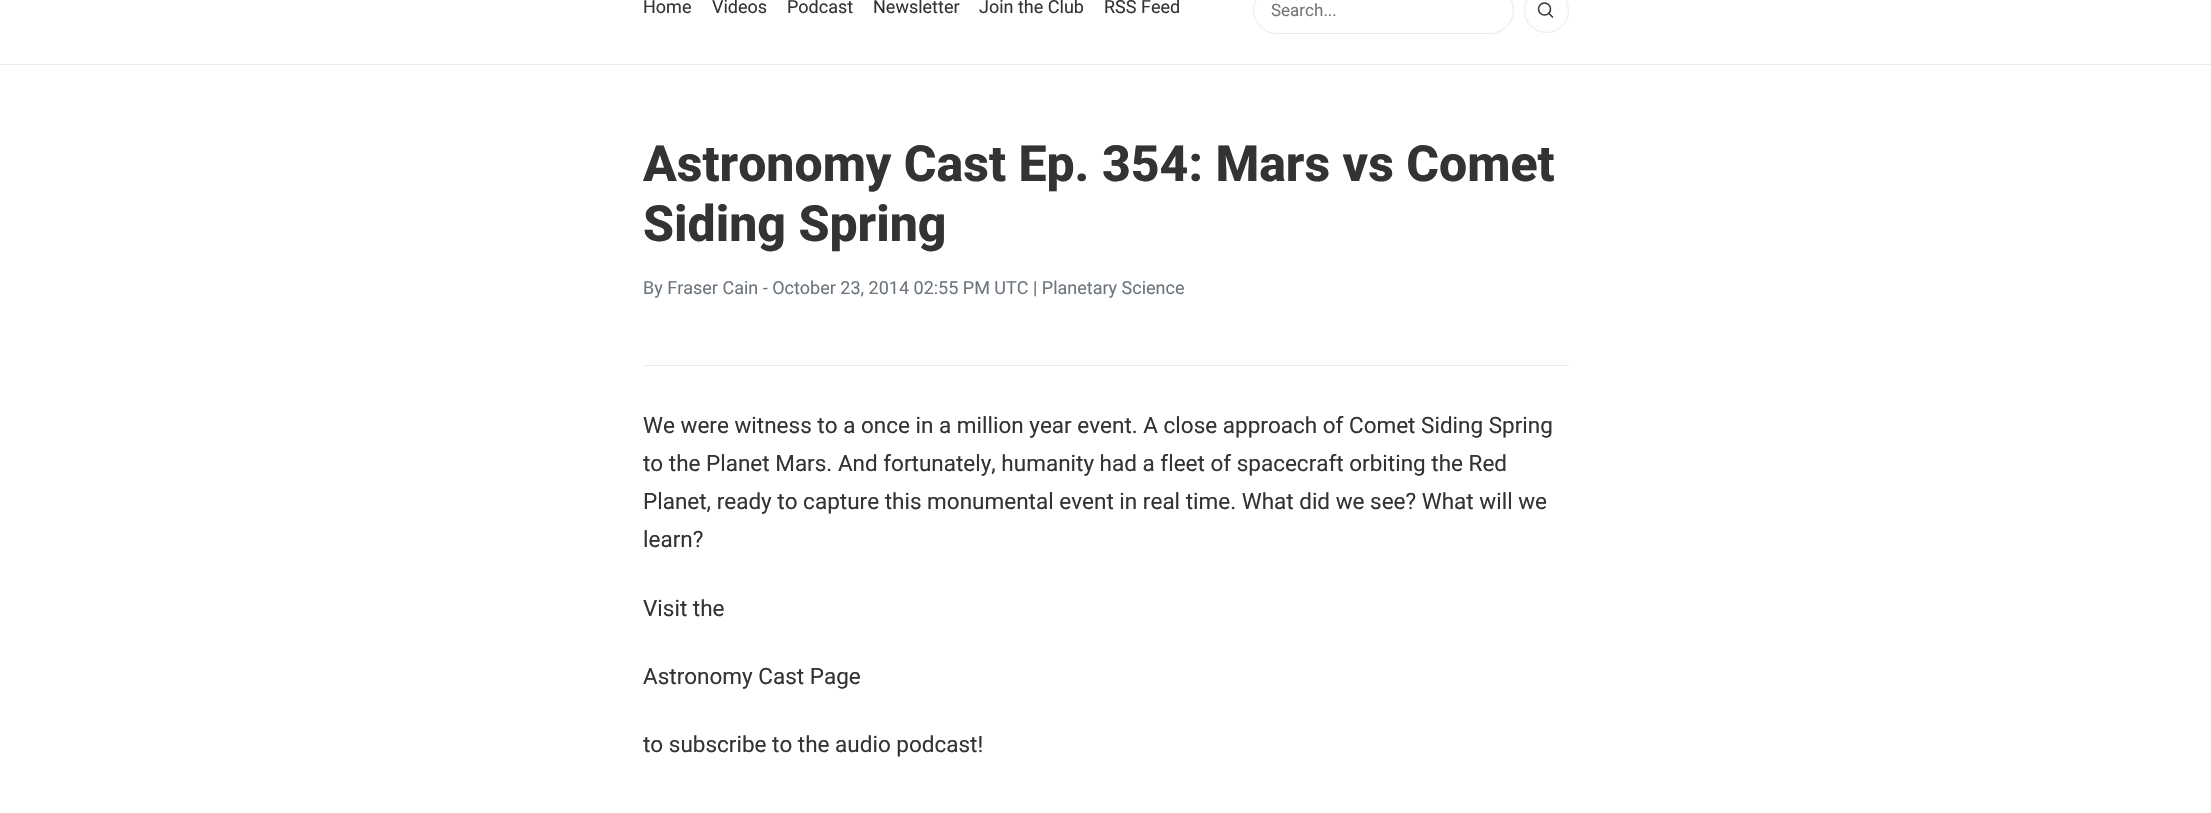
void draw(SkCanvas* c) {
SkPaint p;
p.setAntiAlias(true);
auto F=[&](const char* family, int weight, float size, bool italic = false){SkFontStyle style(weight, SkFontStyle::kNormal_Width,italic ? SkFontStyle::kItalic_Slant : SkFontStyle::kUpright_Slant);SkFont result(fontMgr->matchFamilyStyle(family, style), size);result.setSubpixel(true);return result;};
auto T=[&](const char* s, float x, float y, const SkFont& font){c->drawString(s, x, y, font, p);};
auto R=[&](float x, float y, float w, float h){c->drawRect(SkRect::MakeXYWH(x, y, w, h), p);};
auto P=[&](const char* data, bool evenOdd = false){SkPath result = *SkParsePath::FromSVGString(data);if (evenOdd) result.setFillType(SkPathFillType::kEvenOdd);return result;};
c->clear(0xffffffff);
p.setColor(0xffeaeaea);
R(0,64,2211,1);
auto f1 = F("Roboto",400,18);
p.setColor(0xff333333);
T("Home",643,13,f1);
T("Videos",712,13,f1);
T("Podcast",787,13,f1);
T("Newsletter",873,13,f1);
T("Join the Club",979,13,f1);
T("RSS Feed",1104,13,f1);
p.setStroke(true);
p.setStrokeWidth(1);
p.setColor(0xffeaeaea);
c->drawRoundRect(SkRect::MakeXYWH(1253.5,-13.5,260,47),23.5,23.5,p);
auto f2 = F("Roboto",400,17);
p.setStroke(false);
p.setColor(0xff757575);
T("Search...",1271,16,f2);
p.setStroke(true);
p.setColor(0xffeaeaea);
c->drawCircle(1546.5,10.5,22,p);
p.setStrokeWidth(1.5);
p.setColor(0xff333333);
c->drawCircle(1544.5,9,6,p);
p.setStrokeCap(SkPaint::kRound_Cap);
p.setStrokeJoin(SkPaint::kRound_Join);
c->drawPath(P("M1552.5 17l-3.5-3.5"),p);
p.setStroke(false);
p.setColor(0xffeaeaea);
R(644,365,925,1);
auto f3 = F("Roboto",800,50);
p.setColor(0xff333333);
T("Astronomy Cast Ep. 354: Mars vs Comet",643,181,f3);
T("Siding Spring",643,241,f3);
p.setColor(0xff6c757d);
T("By Fraser Cain - October 23, 2014 02:55 PM UTC | Planetary Science",643,294,f1);
auto f4 = F("Roboto",400,22.5);
p.setColor(0xff333333);
T("We were witness to a once in a million year event. A close approach of Comet Siding Spring",643,433,f4);
T("to the Planet Mars. And fortunately, humanity had a fleet of spacecraft orbiting the Red",643,471,f4);
T("Planet, ready to capture this monumental event in real time. What did we see? What will we",643,509,f4);
T("learn?",643,547,f4);
T("Visit the",643,616,f4);
T("Astronomy Cast Page",643,684,f4);
T("to subscribe to the audio podcast!",643,752,f4);
}
